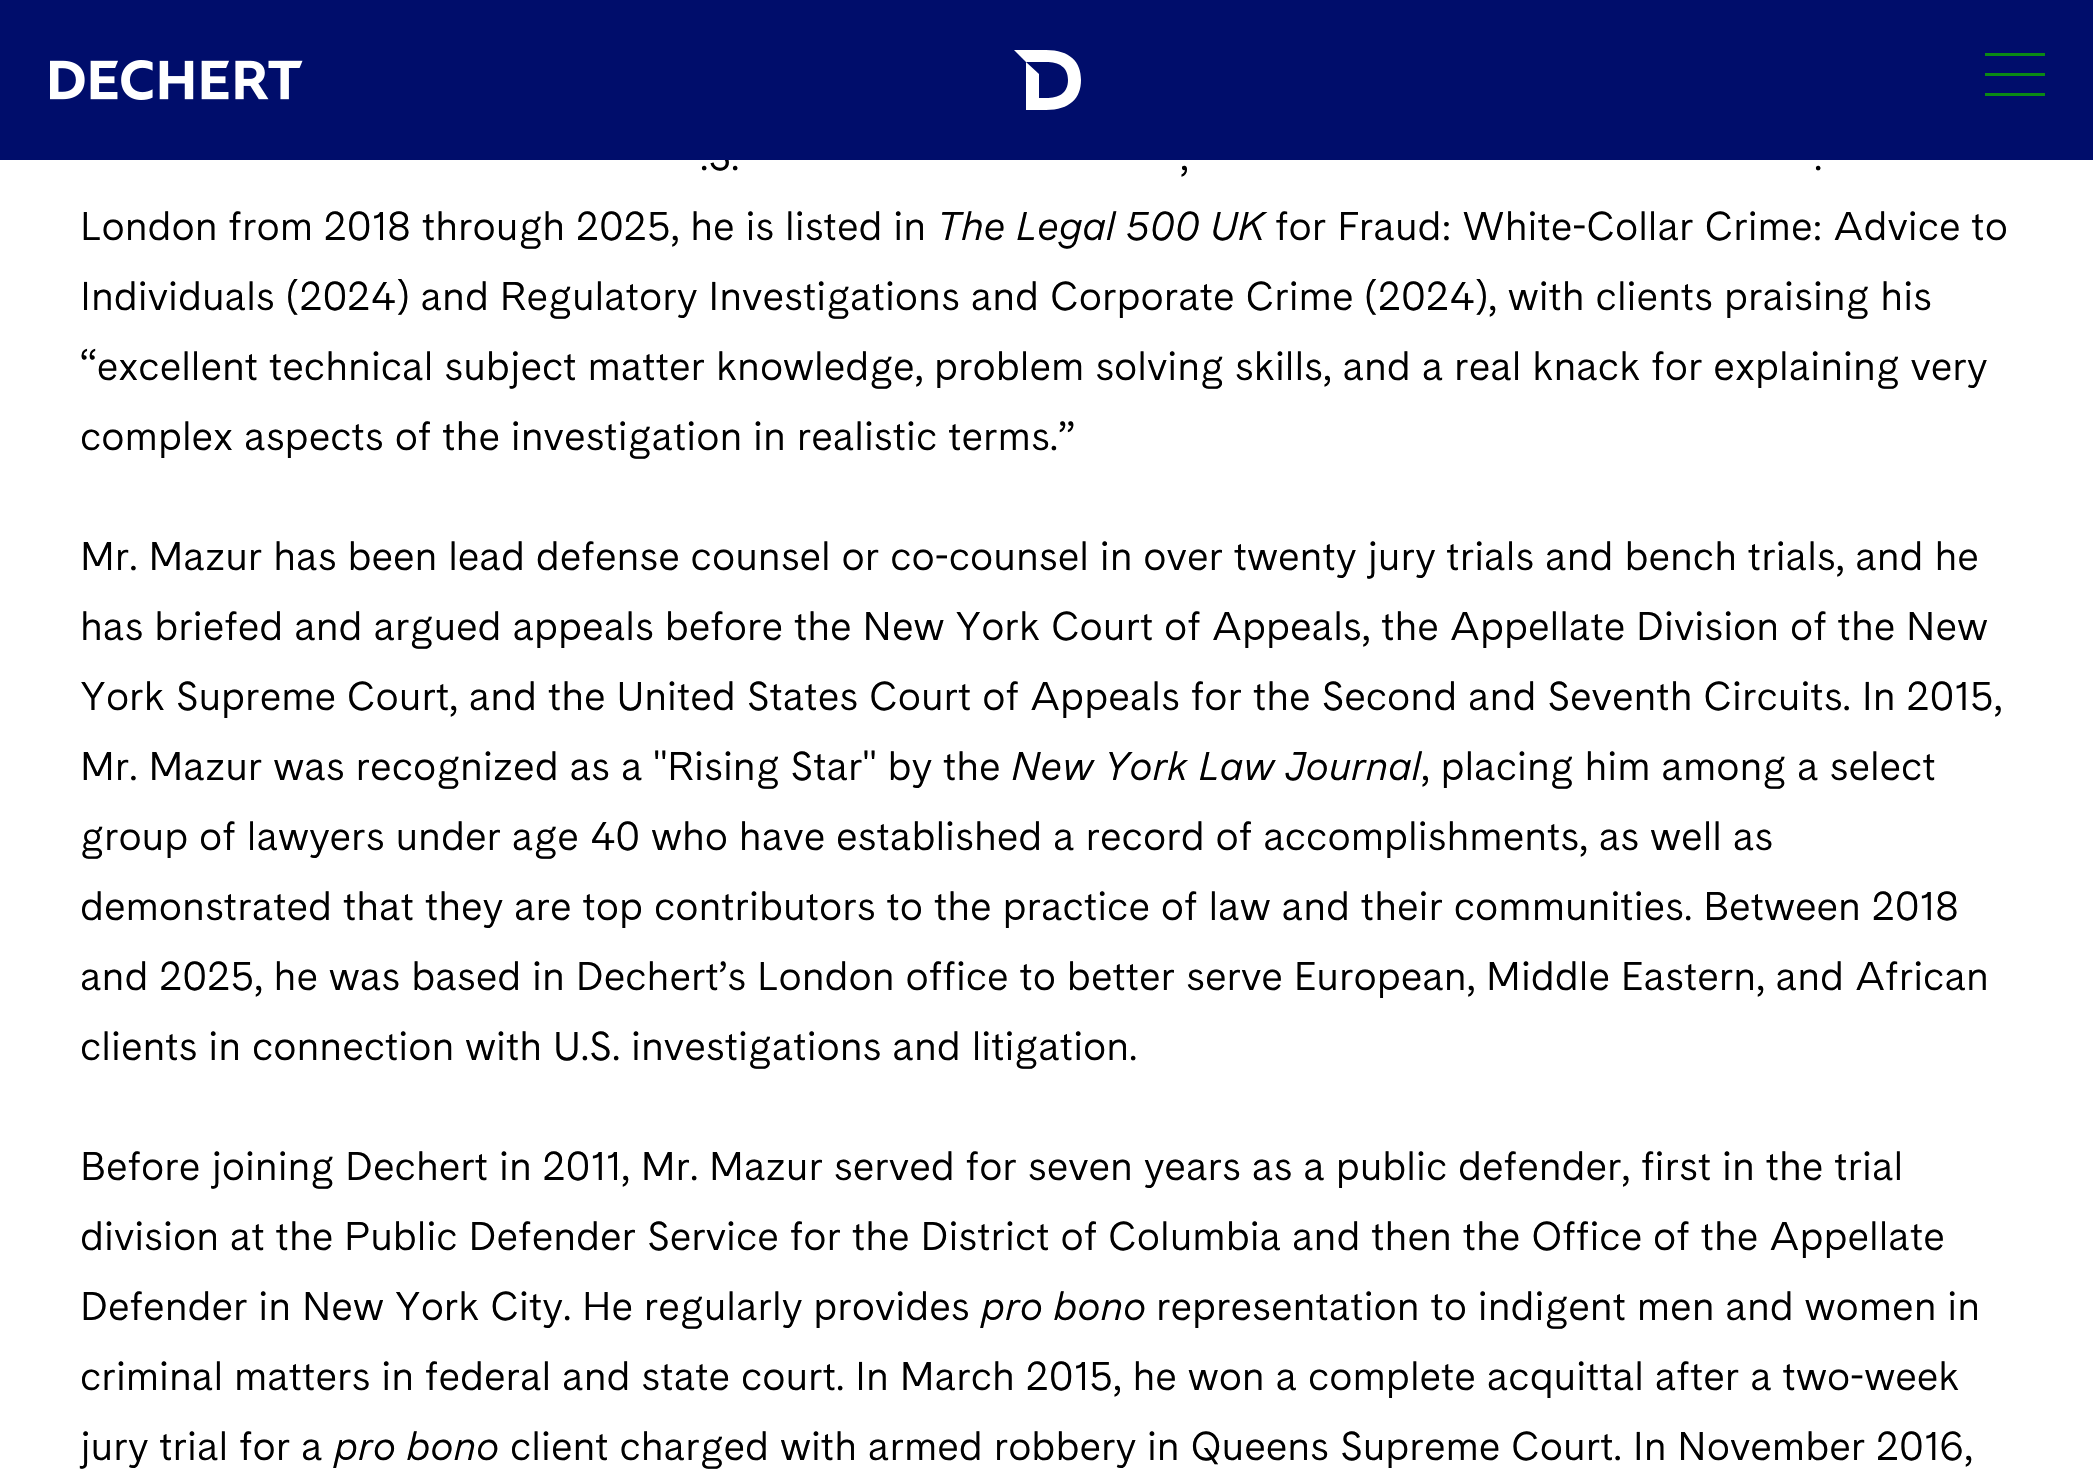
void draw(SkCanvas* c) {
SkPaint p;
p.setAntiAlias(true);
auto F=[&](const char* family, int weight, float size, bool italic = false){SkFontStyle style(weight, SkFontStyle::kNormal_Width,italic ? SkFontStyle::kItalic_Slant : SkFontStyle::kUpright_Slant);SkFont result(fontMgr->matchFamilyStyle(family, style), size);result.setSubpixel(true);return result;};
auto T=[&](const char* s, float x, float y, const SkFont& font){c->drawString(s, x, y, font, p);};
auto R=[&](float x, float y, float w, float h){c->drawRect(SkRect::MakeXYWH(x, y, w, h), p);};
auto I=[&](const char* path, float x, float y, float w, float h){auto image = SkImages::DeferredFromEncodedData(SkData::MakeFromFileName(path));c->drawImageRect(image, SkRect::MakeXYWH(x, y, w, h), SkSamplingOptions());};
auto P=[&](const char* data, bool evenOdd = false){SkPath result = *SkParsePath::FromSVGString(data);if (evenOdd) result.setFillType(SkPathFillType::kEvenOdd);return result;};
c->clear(0xffffffff);
auto f1 = F("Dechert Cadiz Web",400,40);
p.setColor(0xff000000);
T(".S.",700,170,f1);
p.setColor(0xff000d6b);
R(0,0,2093,160);
I("1.png",50,60,253,40);
p.setColor(0xffffffff);
c->drawPath(P("M1026 62v48h20c24 0 35-12 35-30c0-18-11-30-35-30h-32zm20 36h-7v-24l-13-12h20c13 0 22 5 22 18c0 13-9 18-22 18z"),p);
p.setColor(0xff0b8a15);
R(1985,53,60,3);
R(1985,73,60,3);
R(1985,93,60,3);
p.setColor(0xff000000);
T(",",1180,170,f1);
T(".",1814,170,f1);
T("London from 2018 through 2025, he is listed in",80,240,f1);
auto f2 = F("Dechert Cadiz Web",400,40,true);
T("The Legal 500 UK",937,240,f2);
T("for Fraud: White-Collar Crime: Advice to",1275,240,f1);
T("Individuals (2024) and Regulatory Investigations and Corporate Crime (2024), with clients praising his",80,310,f1);
T("“excellent technical subject matter knowledge, problem solving skills, and a real knack for explaining very",80,380,f1);
T("complex aspects of the investigation in realistic terms.”",80,450,f1);
T("Mr. Mazur has been lead defense counsel or co-counsel in over twenty jury trials and bench trials, and he",80,570,f1);
T("has briefed and argued appeals before the New York Court of Appeals, the Appellate Division of the New",80,640,f1);
T("York Supreme Court, and the United States Court of Appeals for the Second and Seventh Circuits. In 2015,",80,710,f1);
T("Mr. Mazur was recognized as a \"Rising Star\" by the",80,780,f1);
T("New York Law Journal",1011,780,f2);
T(", placing him among a select",1421,780,f1);
T("group of lawyers under age 40 who have established a record of accomplishments, as well as",80,850,f1);
T("demonstrated that they are top contributors to the practice of law and their communities. Between 2018",80,920,f1);
T("and 2025, he was based in Dechert’s London office to better serve European, Middle Eastern, and African",80,990,f1);
T("clients in connection with U.S. investigations and litigation.",80,1060,f1);
T("Before joining Dechert in 2011, Mr. Mazur served for seven years as a public defender, first in the trial",80,1180,f1);
T("division at the Public Defender Service for the District of Columbia and then the Office of the Appellate",80,1250,f1);
T("Defender in New York City. He regularly provides",80,1320,f1);
T("pro bono",981,1320,f2);
T("representation to indigent men and women in",1156,1320,f1);
T("criminal matters in federal and state court. In March 2015, he won a complete acquittal after a two-week",80,1390,f1);
T("jury trial for a",80,1460,f1);
T("pro bono",334,1460,f2);
T("client charged with armed robbery in Queens Supreme Court. In November 2016,",510,1460,f1);
}
